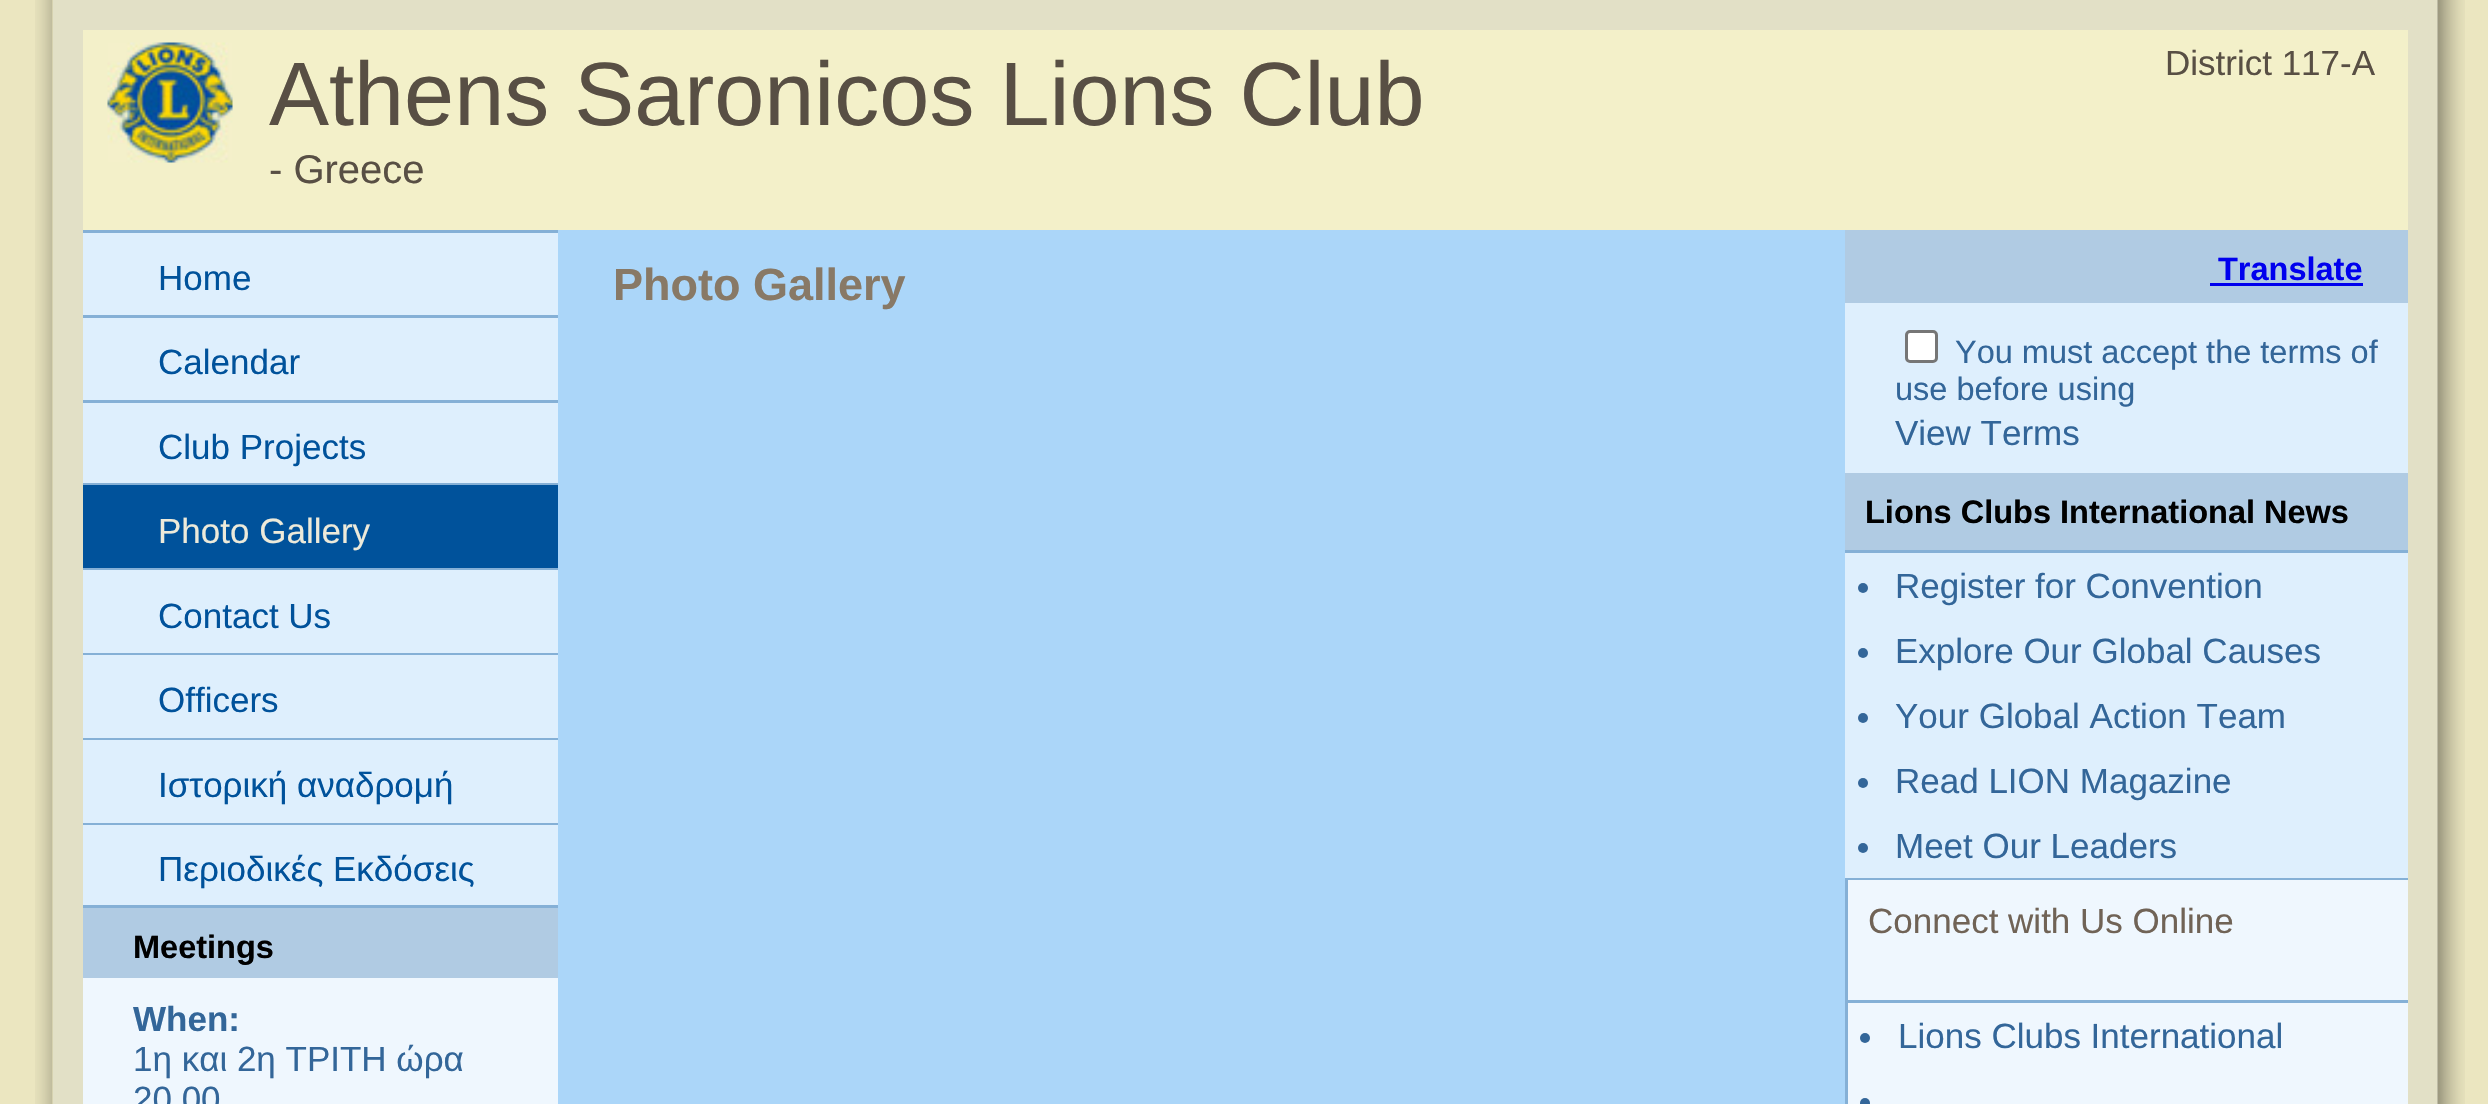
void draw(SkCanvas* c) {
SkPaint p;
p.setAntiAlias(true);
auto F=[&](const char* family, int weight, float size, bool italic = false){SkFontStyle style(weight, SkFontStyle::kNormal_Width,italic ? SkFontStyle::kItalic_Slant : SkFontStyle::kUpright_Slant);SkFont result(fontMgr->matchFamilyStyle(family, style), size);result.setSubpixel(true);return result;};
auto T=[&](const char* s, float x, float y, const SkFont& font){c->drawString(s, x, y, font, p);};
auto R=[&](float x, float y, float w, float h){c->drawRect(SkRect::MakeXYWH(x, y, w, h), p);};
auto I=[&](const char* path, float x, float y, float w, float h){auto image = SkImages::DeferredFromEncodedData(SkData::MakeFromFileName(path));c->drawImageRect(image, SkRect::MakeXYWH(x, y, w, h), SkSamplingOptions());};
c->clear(0xffebe6c0);
I("1.png",35,0,18,1104);
p.setColor(0xffe2e0c6);
R(53,0,2385,1104);
p.setColor(0xfff3f0c9);
R(83,30,2325,200);
I("2.png",107,42,126,121);
auto f1 = F("Liberation Sans",400,90);
p.setColor(0xff584f44);
T("Athens Saronicos Lions Club",269,125,f1);
auto f2 = F("Liberation Sans",400,40);
T("- Greece",269,183,f2);
auto f3 = F("Liberation Sans",400,35);
T("District 117-A",2165,75,f3);
p.setColor(0xffabd6f9);
R(558,230,1287,874);
p.setColor(0xff85b0d6);
R(83,230,475,3);
R(83,315,475,3);
p.setColor(0xffdeeffd);
R(83,233,475,82);
p.setColor(0xff00529b);
T("Home",158,290,f3);
p.setColor(0xff85b0d6);
R(83,400,475,3);
p.setColor(0xffdeeffd);
R(83,318,475,82);
p.setColor(0xff00529b);
T("Calendar",158,374,f3);
p.setColor(0xff85b0d6);
R(83,483,475,2);
p.setColor(0xffdeeffd);
R(83,403,475,80);
p.setColor(0xff00529b);
T("Club Projects",158,459,f3);
p.setColor(0xff85b0d6);
R(83,568,475,2);
p.setColor(0xff00529b);
R(83,485,475,83);
p.setColor(0xffedeada);
T("Photo Gallery",158,543,f3);
p.setColor(0xff85b0d6);
R(83,653,475,2);
p.setColor(0xffdeeffd);
R(83,570,475,83);
p.setColor(0xff00529b);
T("Contact Us",158,628,f3);
p.setColor(0xff85b0d6);
R(83,738,475,2);
p.setColor(0xffdeeffd);
R(83,655,475,83);
p.setColor(0xff00529b);
T("Officers",158,712,f3);
p.setColor(0xff85b0d6);
R(83,823,475,2);
p.setColor(0xffdeeffd);
R(83,740,475,83);
p.setColor(0xff00529b);
T("Iστορική αναδρομή",158,797,f3);
p.setColor(0xff85b0d6);
R(83,905,475,3);
p.setColor(0xffdeeffd);
R(83,825,475,80);
p.setColor(0xff00529b);
T("Περιοδικές Εκδόσεις",158,881,f3);
p.setColor(0xffeff7fe);
R(83,978,475,126);
p.setColor(0xffb0cbe3);
R(83,908,475,70);
auto f4 = F("Liberation Sans",700,32.5);
p.setColor(0xff000000);
T("Meetings",133,958,f4);
auto f5 = F("Liberation Sans",700,35);
p.setColor(0xff336699);
T("When:",133,1031,f5);
T("1η και 2η ΤΡΙΤΗ ώρα",133,1071,f3);
T("20.00",133,1111,f3);
auto f6 = F("Liberation Sans",700,45);
p.setColor(0xff887966);
T("Photo Gallery",613,300,f6);
p.setColor(0xffdeeffd);
R(1845,303,563,170);
p.setColor(0xffb0cbe3);
R(1845,230,563,73);
p.setColor(0xff0000ee);
T("Translate",2218,280,f4);
R(2210,283,153,3);
p.setColor(0xffffffff);
c->drawRoundRect(SkRect::MakeXYWH(1906.5,331.5,30,30),3.5,3.5,p);
p.setStroke(true);
p.setStrokeWidth(3);
p.setColor(0xff767676);
c->drawRoundRect(SkRect::MakeXYWH(1906.5,331.5,30,30),3.5,3.5,p);
auto f7 = F("Liberation Sans",400,32.5);
p.setStroke(false);
p.setColor(0xff336699);
T("You must accept the terms of",1955,363,f7);
T("use before using",1895,400,f7);
T("View Terms",1895,445,f3);
p.setColor(0xffdeeffd);
R(1845,553,563,325);
p.setColor(0xffb0cbe3);
R(1845,473,563,77);
p.setColor(0xff000000);
T("Lions Clubs International News",1865,523,f4);
p.setColor(0xff85b0d6);
R(1845,550,563,3);
p.setColor(0xff336699);
c->drawCircle(1863,588,5,p);
T("Register for Convention",1895,598,f3);
c->drawCircle(1863,653,5,p);
T("Explore Our Global Causes",1895,663,f3);
c->drawCircle(1863,718,5,p);
T("Your Global Action Team",1895,728,f3);
c->drawCircle(1863,783,5,p);
T("Read LION Magazine",1895,793,f3);
c->drawCircle(1863,848,5,p);
T("Meet Our Leaders",1895,858,f3);
p.setColor(0xff85b0d6);
R(1845,878,563,2);
p.setColor(0xffeff7fe);
R(1848,880,560,120);
p.setColor(0xff85b0d6);
R(1845,880,3,120);
p.setColor(0xff706356);
T("Connect with Us Online",1868,933,f3);
p.setColor(0xff85b0d6);
R(1845,1000,563,3);
p.setColor(0xffeff7fe);
R(1848,1003,560,101);
p.setColor(0xff85b0d6);
R(1845,1003,3,101);
p.setColor(0xff336699);
c->drawCircle(1865,1038,5,p);
T("Lions Clubs International",1898,1048,f3);
c->drawCircle(1865,1103,5,p);
I("3.png",2437,0,28,1104);
}
